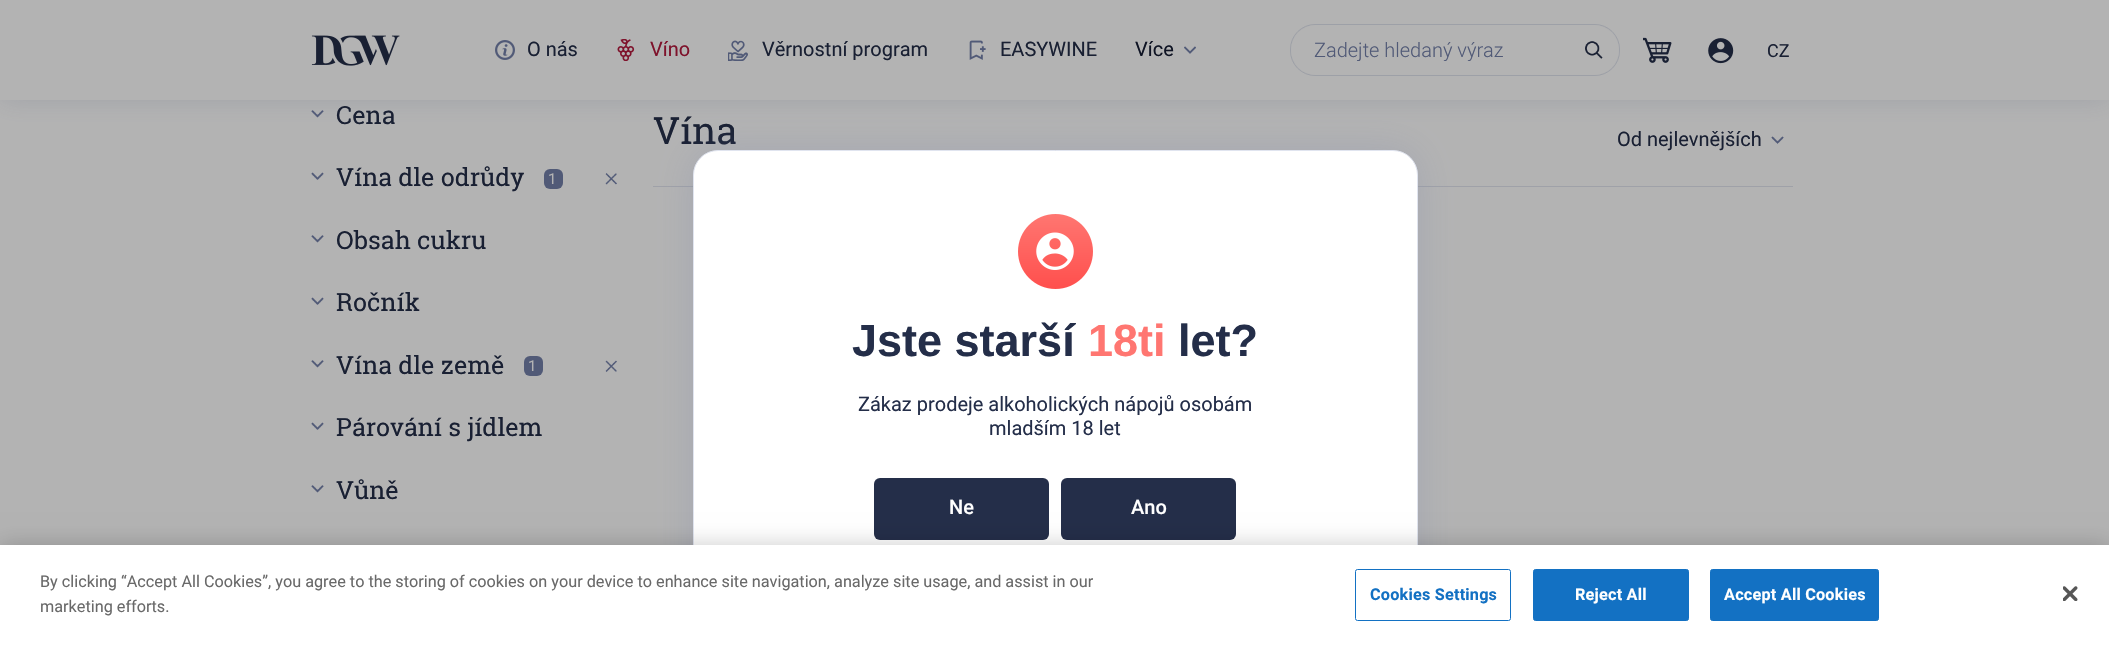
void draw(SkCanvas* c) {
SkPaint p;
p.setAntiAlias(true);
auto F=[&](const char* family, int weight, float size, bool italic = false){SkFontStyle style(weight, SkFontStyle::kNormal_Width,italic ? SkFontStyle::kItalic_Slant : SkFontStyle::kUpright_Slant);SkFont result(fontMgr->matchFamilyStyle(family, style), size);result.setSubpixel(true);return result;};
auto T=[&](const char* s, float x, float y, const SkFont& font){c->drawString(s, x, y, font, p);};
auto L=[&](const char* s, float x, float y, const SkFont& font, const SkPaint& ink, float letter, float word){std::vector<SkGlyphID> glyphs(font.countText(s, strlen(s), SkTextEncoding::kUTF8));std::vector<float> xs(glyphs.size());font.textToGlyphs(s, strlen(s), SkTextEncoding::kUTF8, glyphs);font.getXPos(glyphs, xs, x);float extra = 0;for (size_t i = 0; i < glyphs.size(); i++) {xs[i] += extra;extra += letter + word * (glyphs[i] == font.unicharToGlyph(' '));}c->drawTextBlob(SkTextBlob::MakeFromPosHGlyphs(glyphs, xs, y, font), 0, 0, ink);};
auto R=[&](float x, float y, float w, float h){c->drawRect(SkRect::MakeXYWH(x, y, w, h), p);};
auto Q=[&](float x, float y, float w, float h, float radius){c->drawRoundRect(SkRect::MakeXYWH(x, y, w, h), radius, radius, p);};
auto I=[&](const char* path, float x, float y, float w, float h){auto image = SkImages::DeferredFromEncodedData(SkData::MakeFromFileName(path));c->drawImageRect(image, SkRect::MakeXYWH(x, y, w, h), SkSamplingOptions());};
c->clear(0xffb3b3b3);
I("10.png",311,110,13,8);
I("14.png",1771,136,13,8);
p.setColor(0x33515a77);
p.setMaskFilter(SkMaskFilter::MakeBlur(kNormal_SkBlurStyle, 12.5));
c->drawRect(SkRect::MakeXYWH(0,0,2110,100),p);
p.setMaskFilter(nullptr);
p.setColor(0xffb3b3b3);
R(0,0,2109,100);
I("1.png",311,35,89,31);
I("2.png",495,40,20,20);
auto f1 = F("Roboto",400,20);
p.setColor(0xff192033);
T("O nás",527,56,f1);
I("3.png",617,39,18,22);
p.setColor(0xff7e122b);
T("Víno",650,56,f1);
I("4.png",728,40,20,21);
p.setColor(0xff192033);
T("Věrnostní program",762,56,f1);
I("5.png",969,40,17,20);
T("EASYWINE",1000,56,f1);
p.setColor(0xff0f1424);
T("Více",1135,56,f1);
I("6.png",1184,46,12,8);
p.setColor(0xffadadaf);
c->drawRoundRect(SkRect::MakeXYWH(1290.5,24.5,329,51),24.5,24.5,p);
p.setStroke(true);
p.setStrokeWidth(1);
p.setColor(0xff9da0a7);
c->drawRoundRect(SkRect::MakeXYWH(1290.5,24.5,329,51),24.5,24.5,p);
p.setStroke(false);
p.setColor(0xffb3b3b3);
Q(1291,25,328,50,25);
c->save();
c->clipRect(SkRect::MakeXYWH(1314,38,255,23));
auto f2 = F("Roboto",300,20);
p.setColor(0xff515a77);
T("Zadejte hledaný výraz",1314,57,f2);
c->restore();
I("7.png",1585,41,18,18);
I("8.png",1643,37,29,26);
I("9.png",1708,38,26,26);
auto f3 = F("Roboto",400,18);
p.setColor(0xff192033);
T("CZ",1767,57,f3);
auto f4 = F("Roboto Slab",400,25);
T("Cena",336,124,f4);
I("11.png",311,172,13,8);
T("Vína dle odrůdy",336,186,f4);
p.setColor(0xff515a77);
Q(544,169,19,20,6);
auto f5 = F("Roboto",400,15);
p.setColor(0xffb3b3b3);
T("1",548,184,f5);
I("12.png",605,173,12,12);
I("10.png",311,235,13,8);
p.setColor(0xff192033);
T("Obsah cukru",336,249,f4);
I("11.png",311,297,13,8);
T("Ročník",336,311,f4);
I("10.png",311,360,13,8);
T("Vína dle země",336,374,f4);
p.setColor(0xff515a77);
Q(524,356,19,20,6);
p.setColor(0xffb3b3b3);
T("1",528,371,f5);
I("13.png",605,360,12,12);
I("11.png",311,422,13,8);
p.setColor(0xff192033);
T("Párování s jídlem",336,436,f4);
I("10.png",311,485,13,8);
T("Vůně",336,499,f4);
p.setColor(0xff9fa1a8);
R(653,186,1140,1);
auto f6 = F("Roboto Slab",400,37.5);
p.setColor(0xff192033);
T("Vína",653,144,f6);
T("Od nejlevnějších",1617,146,f1);
p.setColor(0x407481aa);
p.setMaskFilter(SkMaskFilter::MakeBlur(kNormal_SkBlurStyle, 19));
c->drawRoundRect(SkRect::MakeXYWH(693,150,725,454),25,25,p);
p.setMaskFilter(nullptr);
p.setColor(0xffffffff);
c->drawRoundRect(SkRect::MakeXYWH(693.5,150.5,724,453),24.5,24.5,p);
p.setStroke(true);
p.setColor(0xffe0e4ef);
c->drawRoundRect(SkRect::MakeXYWH(693.5,150.5,724,453),24.5,24.5,p);
I("15.png",1018,214,75,75);
auto f7 = F("Liberation Sans",700,45);
p.setStroke(false);
p.setColor(0xff242e49);
T("Jste starší",852,356,f7);
p.setColor(0xffff7671);
T("18ti",1088,356,f7);
p.setColor(0xff242e49);
T("let?",1178,356,f7);
T("Zákaz prodeje alkoholických nápojů osobám",858,411,f1);
T("mladším 18 let",989,435,f1);
Q(874,478,175,62,6);
auto f8 = F("Roboto",500,20);
p.setColor(0xffffffff);
T("Ne",949,514,f8);
p.setColor(0xff242e49);
Q(1061,478,175,62,6);
p.setColor(0xffffffff);
T("Ano",1131,514,f8);
p.setColor(0x33000000);
p.setMaskFilter(SkMaskFilter::MakeBlur(kNormal_SkBlurStyle, 11));
c->drawRect(SkRect::MakeXYWH(0,545,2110,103),p);
p.setMaskFilter(nullptr);
p.setColor(0xffffffff);
R(0,545,2109,102);
auto f9 = F("Roboto",400,16.25);
p.setColor(0xff696969);
T("By clicking “Accept All Cookies”, you agree to the storing of cookies on your device to enhance site navigation, analyze site usage, and assist in our",40,587,f9);
T("marketing efforts.",40,612,f9);
p.setStroke(true);
p.setColor(0xff1371c3);
c->drawRoundRect(SkRect::MakeXYWH(1355.5,569.5,155,51),2,2,p);
auto f10 = F("Roboto",700,16.25);
p.setStroke(false);
L("Cookies Settings",1370,600,f10,p,.2,0);
c->drawRoundRect(SkRect::MakeXYWH(1533.5,569.5,155,51),2,2,p);
p.setStroke(true);
c->drawRoundRect(SkRect::MakeXYWH(1533.5,569.5,155,51),2,2,p);
p.setStroke(false);
p.setColor(0xffffffff);
L("Reject All",1575,600,f10,p,.2,0);
p.setColor(0xff1371c3);
c->drawRoundRect(SkRect::MakeXYWH(1710.5,569.5,168,51),2,2,p);
p.setStroke(true);
c->drawRoundRect(SkRect::MakeXYWH(1710.5,569.5,168,51),2,2,p);
p.setStroke(false);
p.setColor(0xffffffff);
L("Accept All Cookies",1724,600,f10,p,.2,0);
I("16.png",2063,586,15,15);
}
